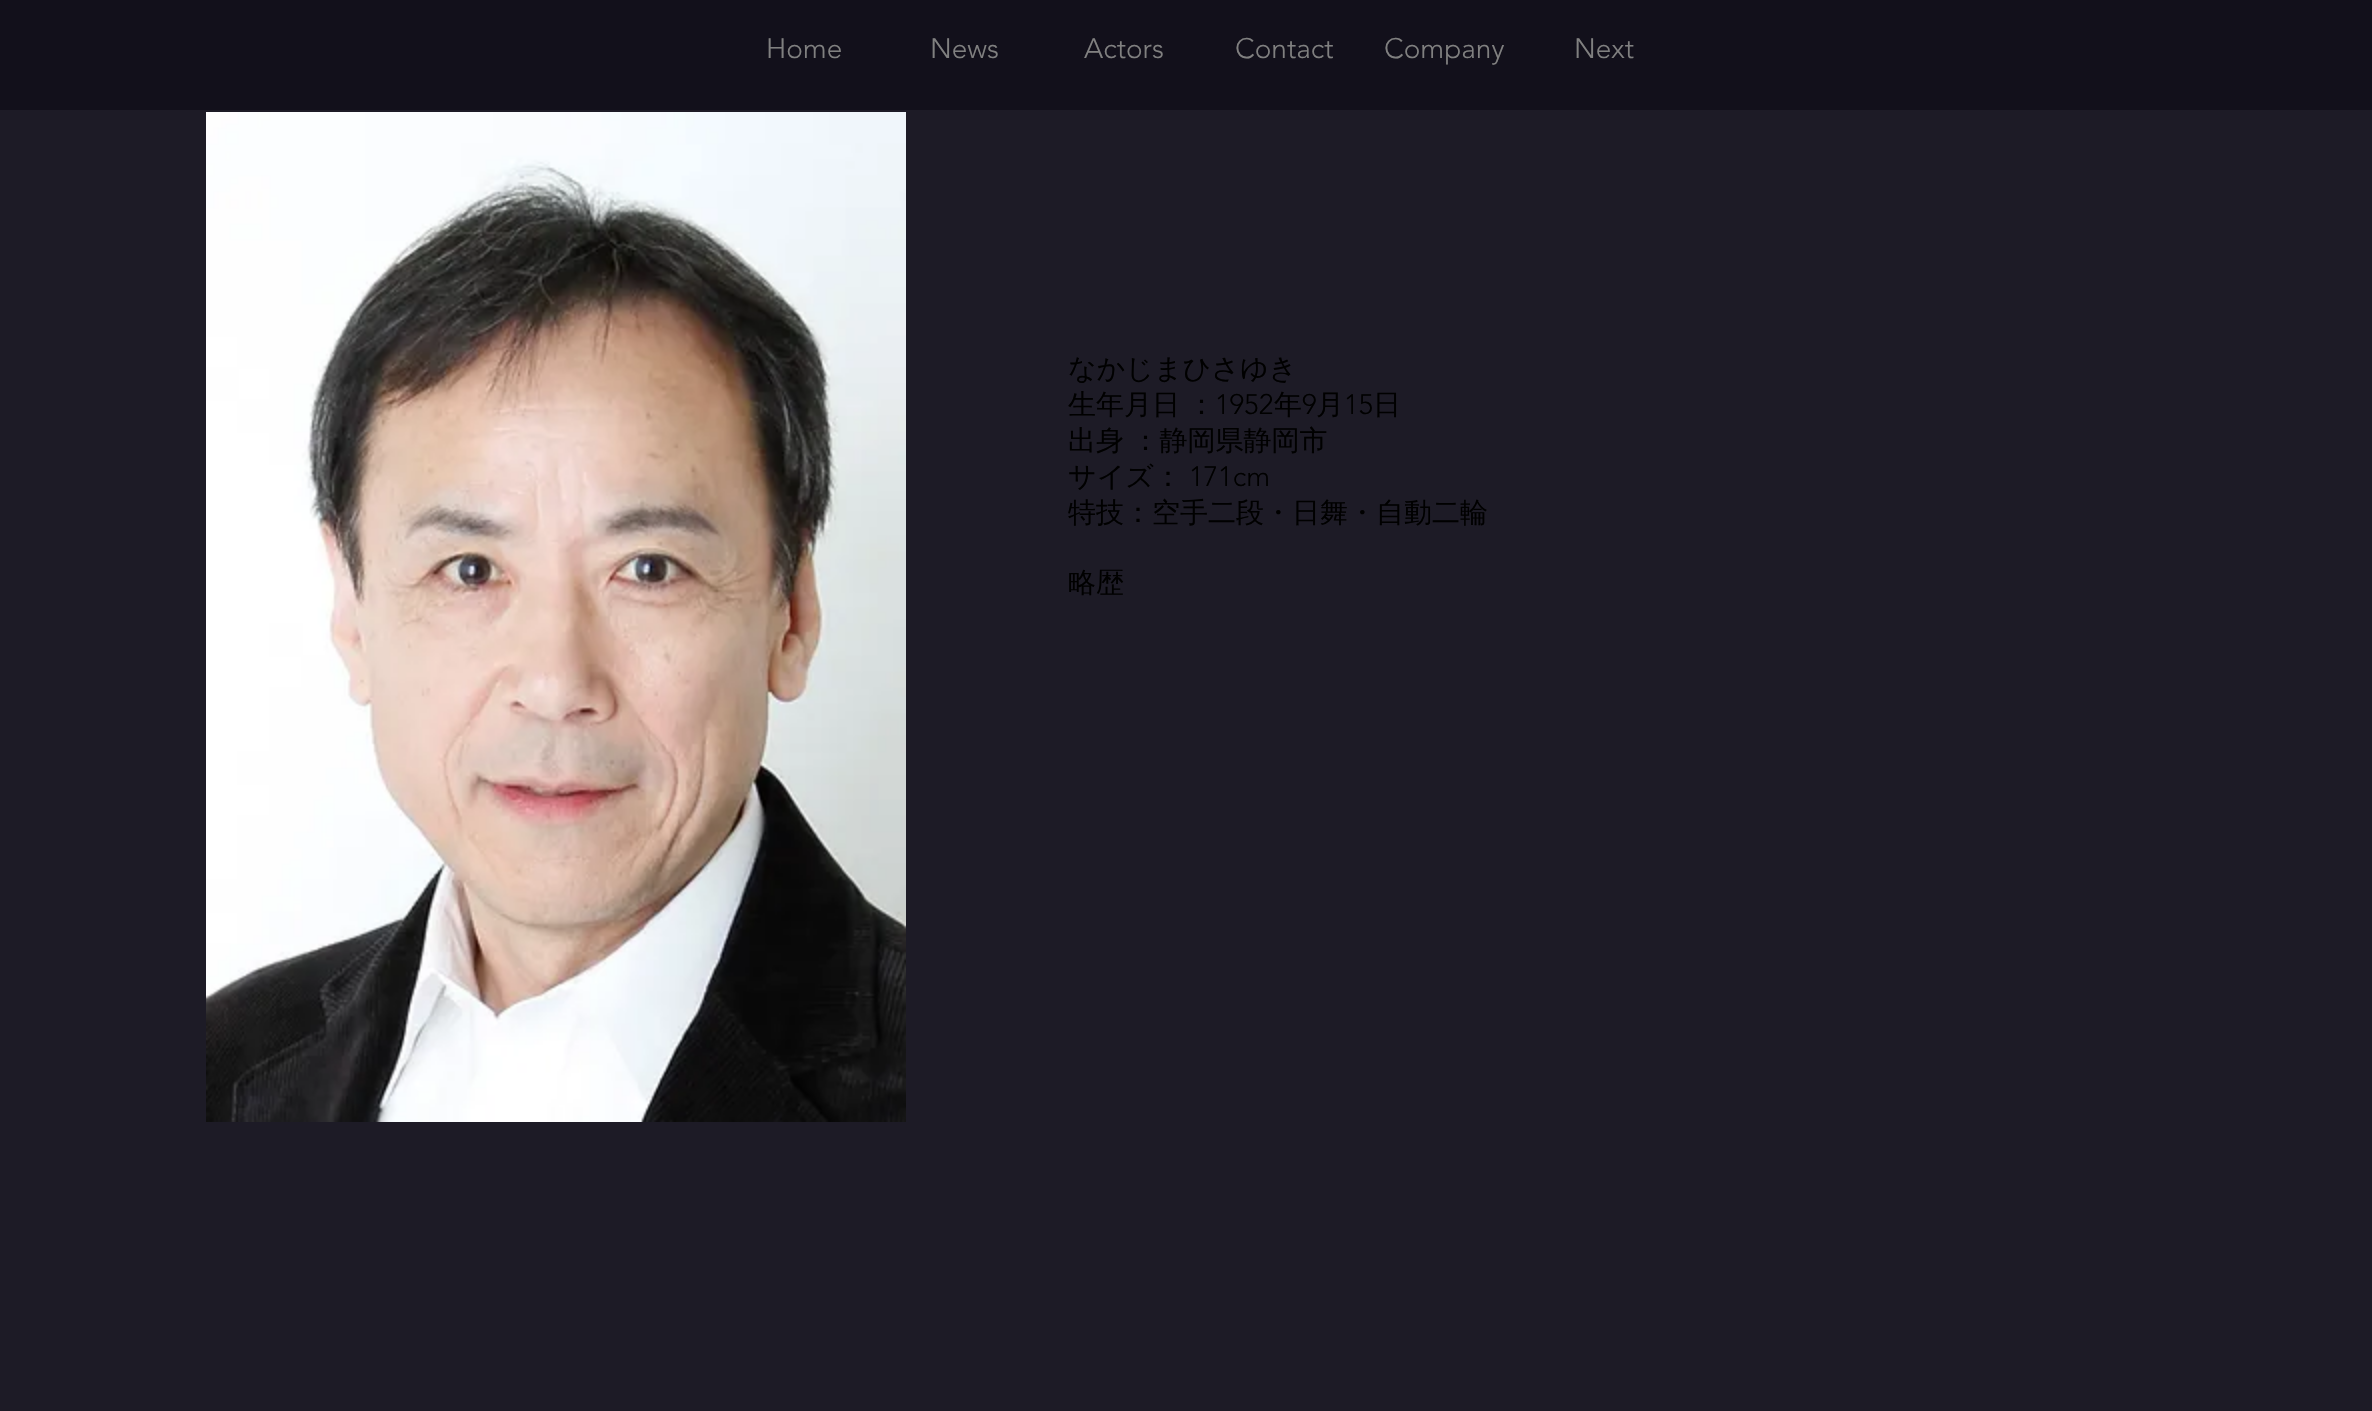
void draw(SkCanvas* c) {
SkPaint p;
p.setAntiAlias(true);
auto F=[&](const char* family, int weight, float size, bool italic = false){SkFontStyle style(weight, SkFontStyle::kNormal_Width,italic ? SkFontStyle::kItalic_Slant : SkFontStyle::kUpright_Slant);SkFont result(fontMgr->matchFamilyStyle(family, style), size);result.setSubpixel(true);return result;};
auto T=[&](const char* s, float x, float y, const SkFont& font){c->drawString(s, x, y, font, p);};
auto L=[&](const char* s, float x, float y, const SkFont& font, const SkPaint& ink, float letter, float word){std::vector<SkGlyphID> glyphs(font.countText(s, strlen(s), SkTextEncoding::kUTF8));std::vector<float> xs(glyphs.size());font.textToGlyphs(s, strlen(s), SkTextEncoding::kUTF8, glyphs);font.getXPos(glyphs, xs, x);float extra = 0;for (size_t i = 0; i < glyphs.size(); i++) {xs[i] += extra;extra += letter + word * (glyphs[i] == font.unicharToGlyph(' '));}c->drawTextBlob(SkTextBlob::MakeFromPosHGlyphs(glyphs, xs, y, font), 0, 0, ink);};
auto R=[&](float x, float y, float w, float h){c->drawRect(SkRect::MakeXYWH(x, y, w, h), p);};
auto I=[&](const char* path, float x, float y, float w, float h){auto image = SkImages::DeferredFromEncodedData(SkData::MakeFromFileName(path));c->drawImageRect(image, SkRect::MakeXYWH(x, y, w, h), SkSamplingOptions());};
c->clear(0xff1d1b26);
p.setColor(0xff12101b);
R(0,0,2372,110);
auto f1 = F("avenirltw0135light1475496",300,28);
p.setColor(0xff808080);
T("Home",766,58,f1);
T("News",930,58,f1);
T("Actors",1084,58,f1);
T("Contact",1235,58,f1);
T("Company",1384,58,f1);
T("Next",1574,58,f1);
I("1.png",206,112,700,1010);
auto f2 = F("WenQuanYi Zen Hei",500,28);
p.setColor(0xff000000);
T("なかじまひさゆき",1068,378,f2);
L("生年月日 ：",1068,414,f2,p,0,-1);
T("1952",1215,414,f1);
T("年",1274,414,f2);
T("9",1302,414,f1);
T("月",1316,414,f2);
T("15",1344,414,f1);
T("日",1373,414,f2);
L("出身 ：静岡県静岡市",1068,450,f2,p,0,-1);
T("サイズ：",1068,486,f2);
T("171cm",1189,486,f1);
T("特技：空手二段・日舞・自動二輪",1068,522,f2);
T("略歴",1068,592,f2);
}
